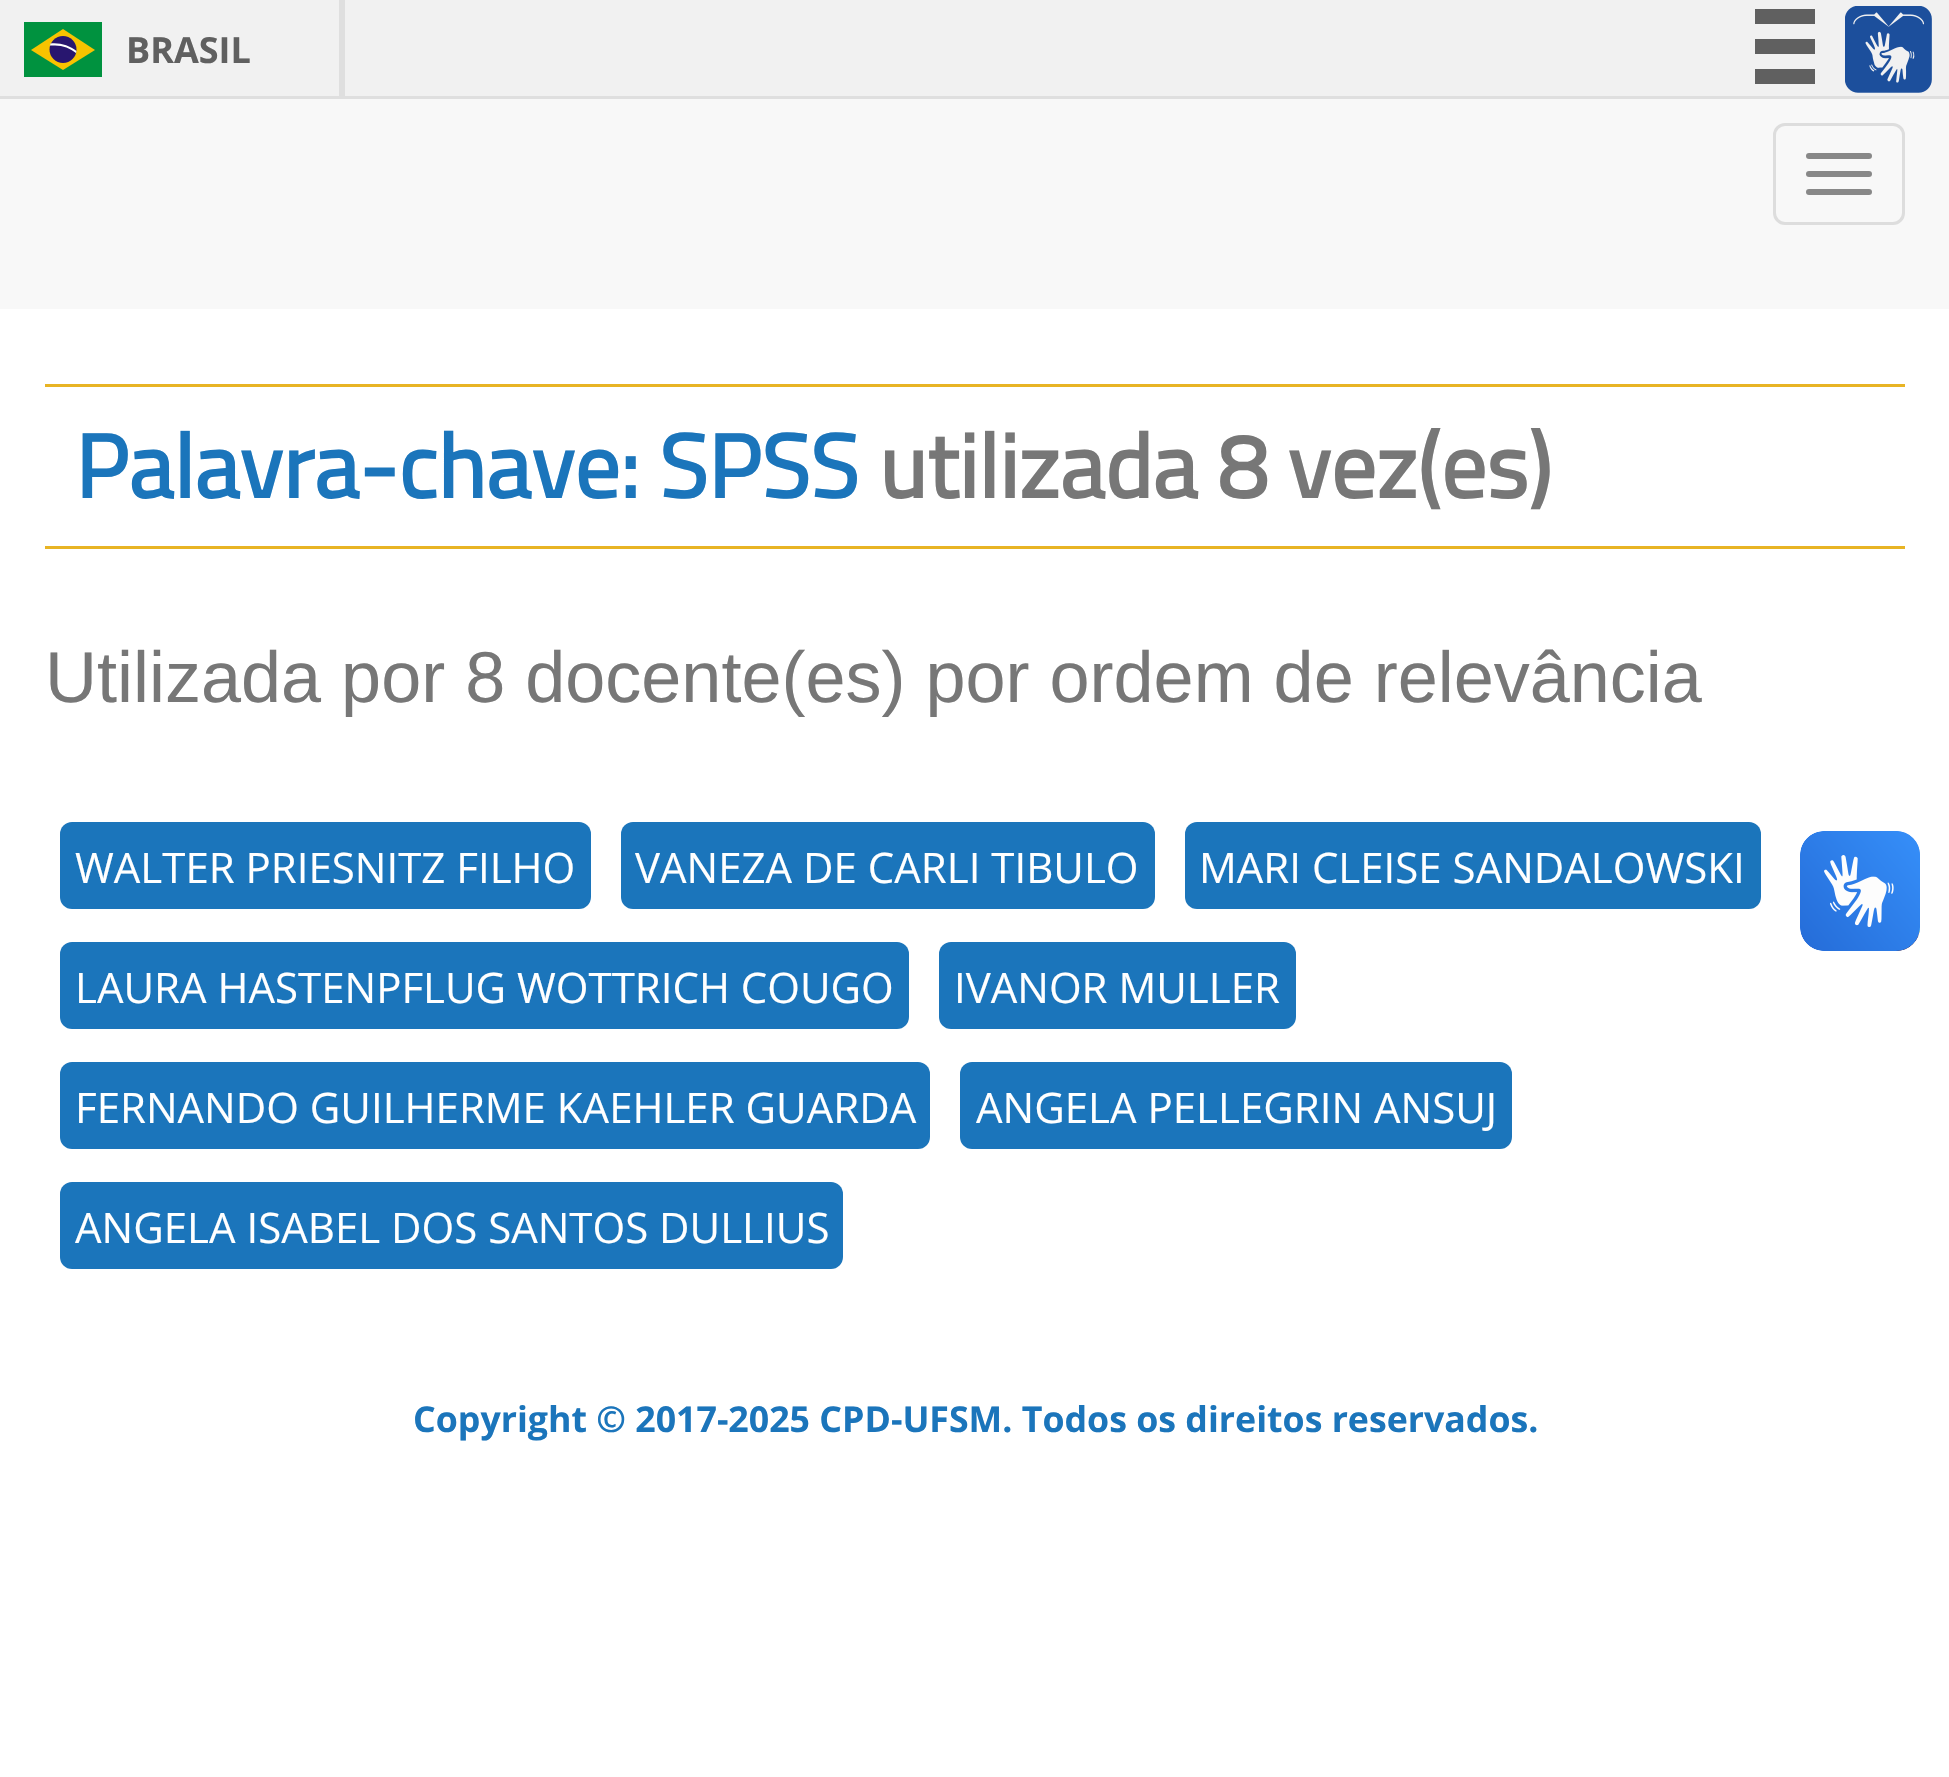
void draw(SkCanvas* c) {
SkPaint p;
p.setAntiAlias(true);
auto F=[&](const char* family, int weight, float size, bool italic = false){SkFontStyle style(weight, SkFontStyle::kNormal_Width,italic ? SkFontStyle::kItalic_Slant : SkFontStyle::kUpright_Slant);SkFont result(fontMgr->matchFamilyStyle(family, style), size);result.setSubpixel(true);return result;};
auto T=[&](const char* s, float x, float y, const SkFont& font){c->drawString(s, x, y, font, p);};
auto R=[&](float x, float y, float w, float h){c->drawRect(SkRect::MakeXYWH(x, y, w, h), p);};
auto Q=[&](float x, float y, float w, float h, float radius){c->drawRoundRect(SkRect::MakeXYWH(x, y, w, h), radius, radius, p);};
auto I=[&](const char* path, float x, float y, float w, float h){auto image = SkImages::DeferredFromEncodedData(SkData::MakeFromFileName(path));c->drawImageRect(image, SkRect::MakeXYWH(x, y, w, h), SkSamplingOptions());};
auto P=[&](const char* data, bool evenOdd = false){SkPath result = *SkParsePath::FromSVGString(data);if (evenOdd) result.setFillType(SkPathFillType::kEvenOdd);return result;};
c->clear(0xffffffff);
p.setColor(0xfff1f1f1);
R(0,0,1949,96);
p.setColor(0xffdfdfdf);
R(0,96,1949,3);
R(339,0,6,96);
p.setColor(0xff00923f);
R(24,22,78,55);
p.setColor(0xfff8c300);
c->drawPath(P("M63 29l-32 21l32 20l32-20z"),p);
p.setColor(0xff28166f);
c->drawCircle(63,49.5,13.5,p);
p.setColor(0xffffffff);
c->drawPath(P("M55 45.5c8 0 15.5 3 21 7.5l.5-2c-7-5.5-16.5-8.5-26-7.5l-.5 2z"),p);
auto f1 = F("Open Sans",700,36);
p.setColor(0xff606060);
T("BRASIL",126,63,f1);
R(1755,9,60,15);
R(1755,39,60,15);
R(1755,69,60,15);
I("1.png",1845,6,87,87);
p.setColor(0xfff8f8f8);
R(0,99,1949,210);
p.setStroke(true);
p.setStrokeWidth(3);
p.setColor(0xffdddddd);
c->drawRoundRect(SkRect::MakeXYWH(1774.5,124.5,129,99),10.5,10.5,p);
p.setStroke(false);
p.setColor(0xff888888);
Q(1806,153,66,6,3);
Q(1806,171,66,6,3);
Q(1806,189,66,6,3);
p.setColor(0xffe8b424);
R(45,384,1860,3);
R(45,546,1860,3);
auto f2 = F("Titillium Web",700,90);
p.setColor(0xff1b75bb);
T("Palavra-chave: SPSS",75,498,f2);
p.setColor(0xff777777);
T("utilizada 8 vez(es)",879,498,f2);
auto f3 = F("Liberation Sans",400,72);
T("Utilizada por 8 docente(es) por ordem de relevância",45,702,f3);
p.setColor(0xff1b75bb);
Q(60,822,531,87,12);
auto f4 = F("Open Sans",400,42);
p.setColor(0xffffffff);
T("WALTER PRIESNITZ FILHO",75,883,f4);
p.setColor(0xff1b75bb);
Q(621,822,534,87,12);
p.setColor(0xffffffff);
T("VANEZA DE CARLI TIBULO",635,883,f4);
p.setColor(0xff1b75bb);
Q(1185,822,576,87,12);
p.setColor(0xffffffff);
T("MARI CLEISE SANDALOWSKI",1199,883,f4);
p.setColor(0xff1b75bb);
Q(60,942,849,87,12);
p.setColor(0xffffffff);
T("LAURA HASTENPFLUG WOTTRICH COUGO",75,1003,f4);
p.setColor(0xff1b75bb);
Q(939,942,357,87,12);
p.setColor(0xffffffff);
T("IVANOR MULLER",954,1003,f4);
p.setColor(0xff1b75bb);
Q(60,1062,870,87,12);
p.setColor(0xffffffff);
T("FERNANDO GUILHERME KAEHLER GUARDA",75,1123,f4);
p.setColor(0xff1b75bb);
Q(960,1062,552,87,12);
p.setColor(0xffffffff);
T("ANGELA PELLEGRIN ANSUJ",976,1123,f4);
p.setColor(0xff1b75bb);
Q(60,1182,783,87,12);
p.setColor(0xffffffff);
T("ANGELA ISABEL DOS SANTOS DULLIUS",75,1243,f4);
auto f5 = F("Open Sans",700,35.7);
p.setColor(0xff1b75bb);
T("Copyright © 2017-2025 CPD-UFSM. Todos os direitos reservados.",413,1432,f5);
I("2.png",1800,831,120,120);
I("3.png",1800,831,120,120);
}
